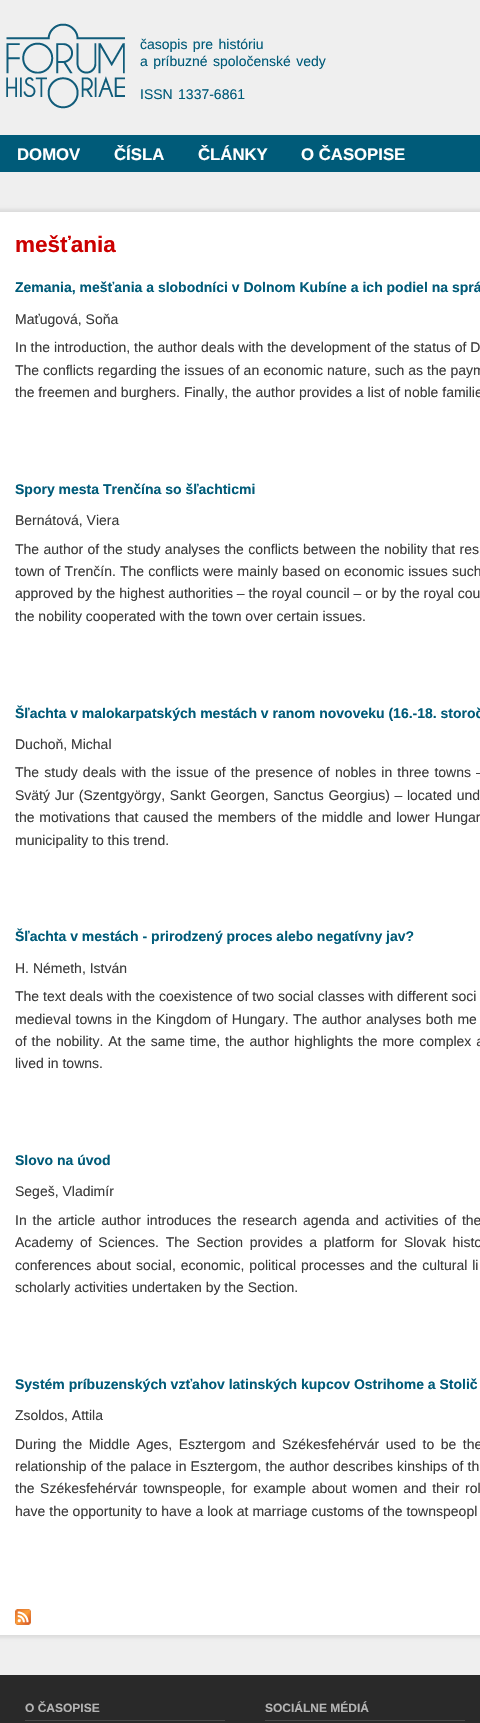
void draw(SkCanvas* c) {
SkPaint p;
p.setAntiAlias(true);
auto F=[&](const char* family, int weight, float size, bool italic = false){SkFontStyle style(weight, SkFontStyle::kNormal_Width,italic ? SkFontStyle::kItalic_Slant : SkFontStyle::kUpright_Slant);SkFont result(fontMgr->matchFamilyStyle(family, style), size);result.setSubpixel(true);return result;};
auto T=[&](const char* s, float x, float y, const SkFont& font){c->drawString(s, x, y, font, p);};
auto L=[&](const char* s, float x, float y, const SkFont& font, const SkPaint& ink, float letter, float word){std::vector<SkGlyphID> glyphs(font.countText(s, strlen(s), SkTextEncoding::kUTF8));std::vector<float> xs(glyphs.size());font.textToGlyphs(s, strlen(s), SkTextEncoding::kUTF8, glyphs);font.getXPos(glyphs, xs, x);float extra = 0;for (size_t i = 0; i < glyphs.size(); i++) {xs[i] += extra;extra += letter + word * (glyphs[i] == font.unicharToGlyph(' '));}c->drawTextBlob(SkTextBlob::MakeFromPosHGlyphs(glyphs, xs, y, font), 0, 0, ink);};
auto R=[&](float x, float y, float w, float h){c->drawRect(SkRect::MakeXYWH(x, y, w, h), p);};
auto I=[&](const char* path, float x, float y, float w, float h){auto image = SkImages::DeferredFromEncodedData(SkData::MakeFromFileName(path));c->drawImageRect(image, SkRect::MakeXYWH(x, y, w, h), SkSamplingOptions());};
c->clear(0xffefefef);
I("1.png",6,23,119,86);
auto f1 = F("Liberation Sans",400,14);
p.setColor(0xff005b79);
L("časopis pre históriu",140,49,f1,p,0,1.5);
L("a príbuzné spoločenské vedy",140,66,f1,p,0,1.5);
L("ISSN 1337-6861",140,99,f1,p,0,1.5);
R(0,135,480,37);
auto f2 = F("Liberation Sans",700,16.75);
p.setColor(0xffffffff);
T("DOMOV",17,160,f2);
T("ČÍSLA",114,160,f2);
T("ČLÁNKY",198,160,f2);
T("O ČASOPISE",301,160,f2);
p.setColor(0xffdddddd);
p.setMaskFilter(SkMaskFilter::MakeBlur(kNormal_SkBlurStyle, 1.5));
c->drawRect(SkRect::MakeXYWH(-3,209,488,1429),p);
p.setMaskFilter(nullptr);
p.setColor(0xffffffff);
R(0,212,480,1423);
auto f3 = F("Liberation Sans",700,22.5);
p.setColor(0xffcc0000);
T("mešťania",15,252,f3);
auto f4 = F("Liberation Sans",700,14);
p.setColor(0xff005b79);
T("Zemania, mešťania a slobodníci v Dolnom Kubíne a ich podiel na sprá",15,292,f4);
p.setColor(0xff3b3b3b);
T("Maťugová, Soňa",15,324,f1);
T("In the introduction, the author deals with the development of the status of D",15,352,f1);
L("The conflicts regarding the issues of an economic nature, such as the paym",15,375,f1,p,0,.1);
T("the freemen and burghers. Finally, the author provides a list of noble familie",15,397,f1);
p.setColor(0xff005b79);
T("Spory mesta Trenčína so šľachticmi",15,494,f4);
p.setColor(0xff3b3b3b);
T("Bernátová, Viera",15,525,f1);
L("The author of the study analyses the conflicts between the nobility that res",15,554,f1,p,0,.4);
L("town of Trenčín. The conflicts were mainly based on economic issues such",15,576,f1,p,0,.25);
T("approved by the highest authorities – the royal council – or by the royal cou",15,598,f1);
T("the nobility cooperated with the town over certain issues.",15,621,f1);
p.setColor(0xff005b79);
T("Šľachta v malokarpatských mestách v ranom novoveku (16.-18. storoč",15,718,f4);
p.setColor(0xff3b3b3b);
T("Duchoň, Michal",15,749,f1);
L("The study deals with the issue of the presence of nobles in three towns –",15,777,f1,p,0,1.25);
L("Svätý Jur (Szentgyörgy, Sankt Georgen, Sanctus Georgius) – located und",15,800,f1,p,0,.75);
L("the motivations that caused the members of the middle and lower Hungar",15,822,f1,p,0,1);
T("municipality to this trend.",15,845,f1);
p.setColor(0xff005b79);
T("Šľachta v mestách - prirodzený proces alebo negatívny jav?",15,941,f4);
p.setColor(0xff3b3b3b);
T("H. Németh, István",15,973,f1);
T("The text deals with the coexistence of two social classes with different soci",15,1001,f1);
L("medieval towns in the Kingdom of Hungary. The author analyses both me",15,1024,f1,p,0,.6);
L("of the nobility. At the same time, the author highlights the more complex a",15,1046,f1,p,0,1);
T("lived in towns.",15,1068,f1);
p.setColor(0xff005b79);
T("Slovo na úvod",15,1165,f4);
p.setColor(0xff3b3b3b);
T("Segeš, Vladimír",15,1196,f1);
L("In the article author introduces the research agenda and activities of the",15,1225,f1,p,0,2);
L("Academy of Sciences. The Section provides a platform for Slovak histo",15,1247,f1,p,0,2.75);
L("conferences about social, economic, political processes and the cultural li",15,1270,f1,p,0,1);
T("scholarly activities undertaken by the Section.",15,1292,f1);
p.setColor(0xff005b79);
T("Systém príbuzenských vzťahov latinských kupcov Ostrihome a Stolič",15,1389,f4);
p.setColor(0xff3b3b3b);
T("Zsoldos, Attila",15,1420,f1);
L("During the Middle Ages, Esztergom and Székesfehérvár used to be the",15,1449,f1,p,0,2.6);
L("relationship of the palace in Esztergom, the author describes kinships of th",15,1471,f1,p,0,.25);
L("the Székesfehérvár townspeople, for example about women and their rol",15,1493,f1,p,0,1.75);
T("have the opportunity to have a look at marriage customs of the townspeopl",15,1516,f1);
I("2.png",15,1609,16,16);
p.setColor(0xff292929);
R(0,1675,480,48);
p.setColor(0xff494949);
R(25,1720,200,1);
auto f5 = F("Liberation Sans",700,12);
p.setColor(0xffb4b4b4);
T("O ČASOPISE",25,1712,f5);
p.setColor(0xff494949);
R(265,1720,200,1);
p.setColor(0xffb4b4b4);
T("SOCIÁLNE MÉDIÁ",265,1712,f5);
}
